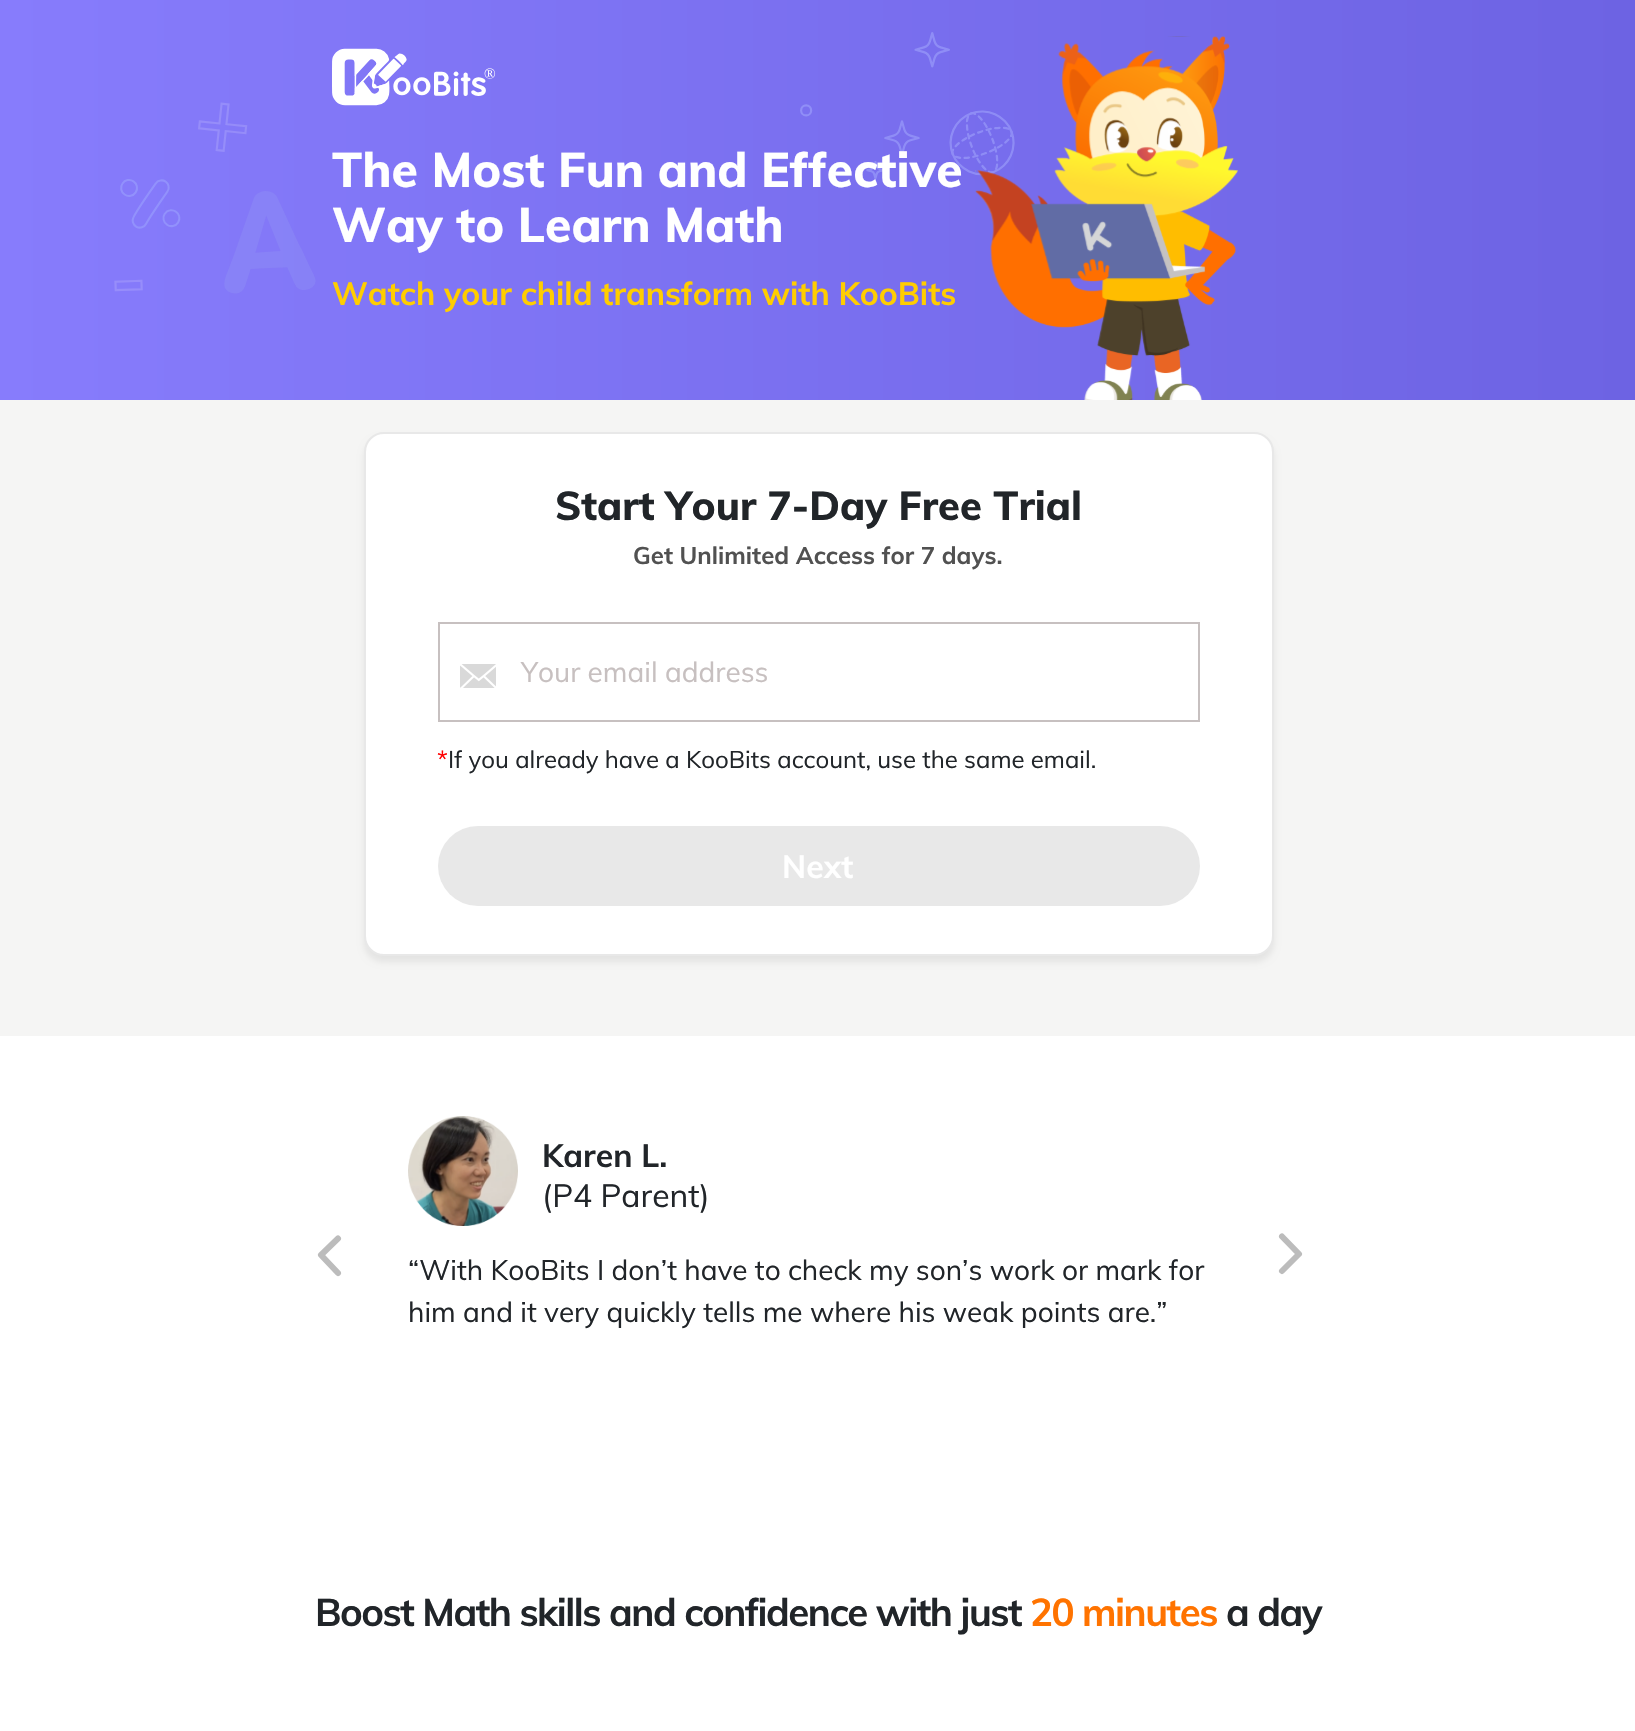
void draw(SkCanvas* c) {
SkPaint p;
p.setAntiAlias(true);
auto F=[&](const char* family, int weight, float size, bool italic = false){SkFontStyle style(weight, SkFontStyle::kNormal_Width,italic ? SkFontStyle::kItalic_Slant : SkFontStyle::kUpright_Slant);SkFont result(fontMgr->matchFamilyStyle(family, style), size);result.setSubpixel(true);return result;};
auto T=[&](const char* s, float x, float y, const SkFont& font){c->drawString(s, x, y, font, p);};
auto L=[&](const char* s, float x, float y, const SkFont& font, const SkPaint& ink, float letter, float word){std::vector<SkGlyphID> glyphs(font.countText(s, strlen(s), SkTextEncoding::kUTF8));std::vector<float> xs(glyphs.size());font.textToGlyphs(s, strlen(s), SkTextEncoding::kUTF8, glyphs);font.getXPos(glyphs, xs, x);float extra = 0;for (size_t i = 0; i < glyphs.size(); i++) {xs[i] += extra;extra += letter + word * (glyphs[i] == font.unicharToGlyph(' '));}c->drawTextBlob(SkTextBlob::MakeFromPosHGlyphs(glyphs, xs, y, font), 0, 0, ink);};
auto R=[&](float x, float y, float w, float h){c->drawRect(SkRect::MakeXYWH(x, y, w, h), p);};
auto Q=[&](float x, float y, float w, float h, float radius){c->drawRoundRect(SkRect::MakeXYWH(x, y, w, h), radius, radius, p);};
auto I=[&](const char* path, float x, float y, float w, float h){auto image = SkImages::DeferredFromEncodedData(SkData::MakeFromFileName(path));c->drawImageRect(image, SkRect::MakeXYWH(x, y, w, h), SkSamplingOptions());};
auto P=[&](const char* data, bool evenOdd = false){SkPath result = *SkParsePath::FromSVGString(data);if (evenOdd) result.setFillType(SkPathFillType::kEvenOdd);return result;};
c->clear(0xffffffff);
{
const SkColor colors[] = {0xff877cfc,0xff6d63e3};
const float stops[] = {0,1};
const SkPoint ends[] = {{0,200}, {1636,200}};
p.setShader(SkGradientShader::MakeLinear(ends, colors, stops, 2, SkTileMode::kClamp));
p.setAlpha(255);
}
R(0,0,1635,400);
I("1.png",332,48,164,58);
I("2.png",114,102,202,192);
I("3.png",800,32,438,368);
auto f1 = F("Muli",800,48);
p.setShader(nullptr);
p.setColor(0xffffffff);
T("The Most Fun and Effective",332,187,f1);
T("Way to Learn Math",332,242,f1);
auto f2 = F("Muli",700,32);
p.setColor(0xffffcd00);
T("Watch your child transform with KooBits",332,305,f2);
p.setColor(0xfff5f5f4);
R(0,400,1635,636);
p.setColor(0x12000000);
p.setMaskFilter(SkMaskFilter::MakeBlur(kNormal_SkBlurStyle, 3));
c->drawRoundRect(SkRect::MakeXYWH(364,438,910,524),20,20,p);
p.setMaskFilter(nullptr);
p.setColor(0xffffffff);
c->drawRoundRect(SkRect::MakeXYWH(365,433,908,522),19,19,p);
p.setStroke(true);
p.setStrokeWidth(2);
p.setColor(0xffe8e8e8);
c->drawRoundRect(SkRect::MakeXYWH(365,433,908,522),19,19,p);
auto f3 = F("Muli",800,40);
p.setStroke(false);
p.setColor(0xff212529);
T("Start Your 7-Day Free Trial",555,520,f3);
auto f4 = F("Muli",700,24);
p.setColor(0xff515151);
T("Get Unlimited Access for 7 days.",633,564,f4);
p.setStroke(true);
p.setColor(0xffc7c0c0);
c->drawRect(SkRect::MakeXYWH(439,623,760,98),p);
I("4.png",460,664,36,24);
auto f5 = F("Muli",400,28);
p.setStroke(false);
T("Your email address",521,682,f5);
auto f6 = F("Muli",400,24);
p.setColor(0xffff0000);
T("*",437,768,f6);
p.setColor(0xff212529);
T("If you already have a KooBits account, use the same email.",448,768,f6);
p.setColor(0xffe8e8e8);
Q(438,826,762,80,40);
p.setColor(0xffffffff);
T("Next",782,878,f2);
p.setStroke(true);
p.setStrokeWidth(6);
p.setStrokeCap(SkPaint::kRound_Cap);
p.setStrokeJoin(SkPaint::kRound_Join);
p.setColor(0xffbcbcbc);
c->drawPath(P("M338 1238.5l-17 16.5l17 18"),p);
I("5.png",408,1116,110,110);
p.setStroke(false);
p.setColor(0xff212529);
T("Karen L.",542,1167,f2);
auto f7 = F("Muli",400,32);
T("(P4 Parent)",542,1207,f7);
T("“With KooBits I don’t have to check my son’s work or mark for",408,1280,f5);
T("him and it very quickly tells me where his weak points are.”",408,1322,f5);
p.setStroke(true);
p.setColor(0xffbcbcbc);
c->drawPath(P("M1282 1271l17-17l-17-17.5"),p);
auto f8 = F("Muli",700,38.4);
p.setStroke(false);
p.setColor(0xff212529);
L("Boost Math skills and confidence with just",315,1626,f8,p,-1.5,0);
p.setColor(0xffff7300);
L("20 minutes",1030,1626,f8,p,-1.5,0);
p.setColor(0xff212529);
L("a day",1226,1626,f8,p,-1.5,0);
}
